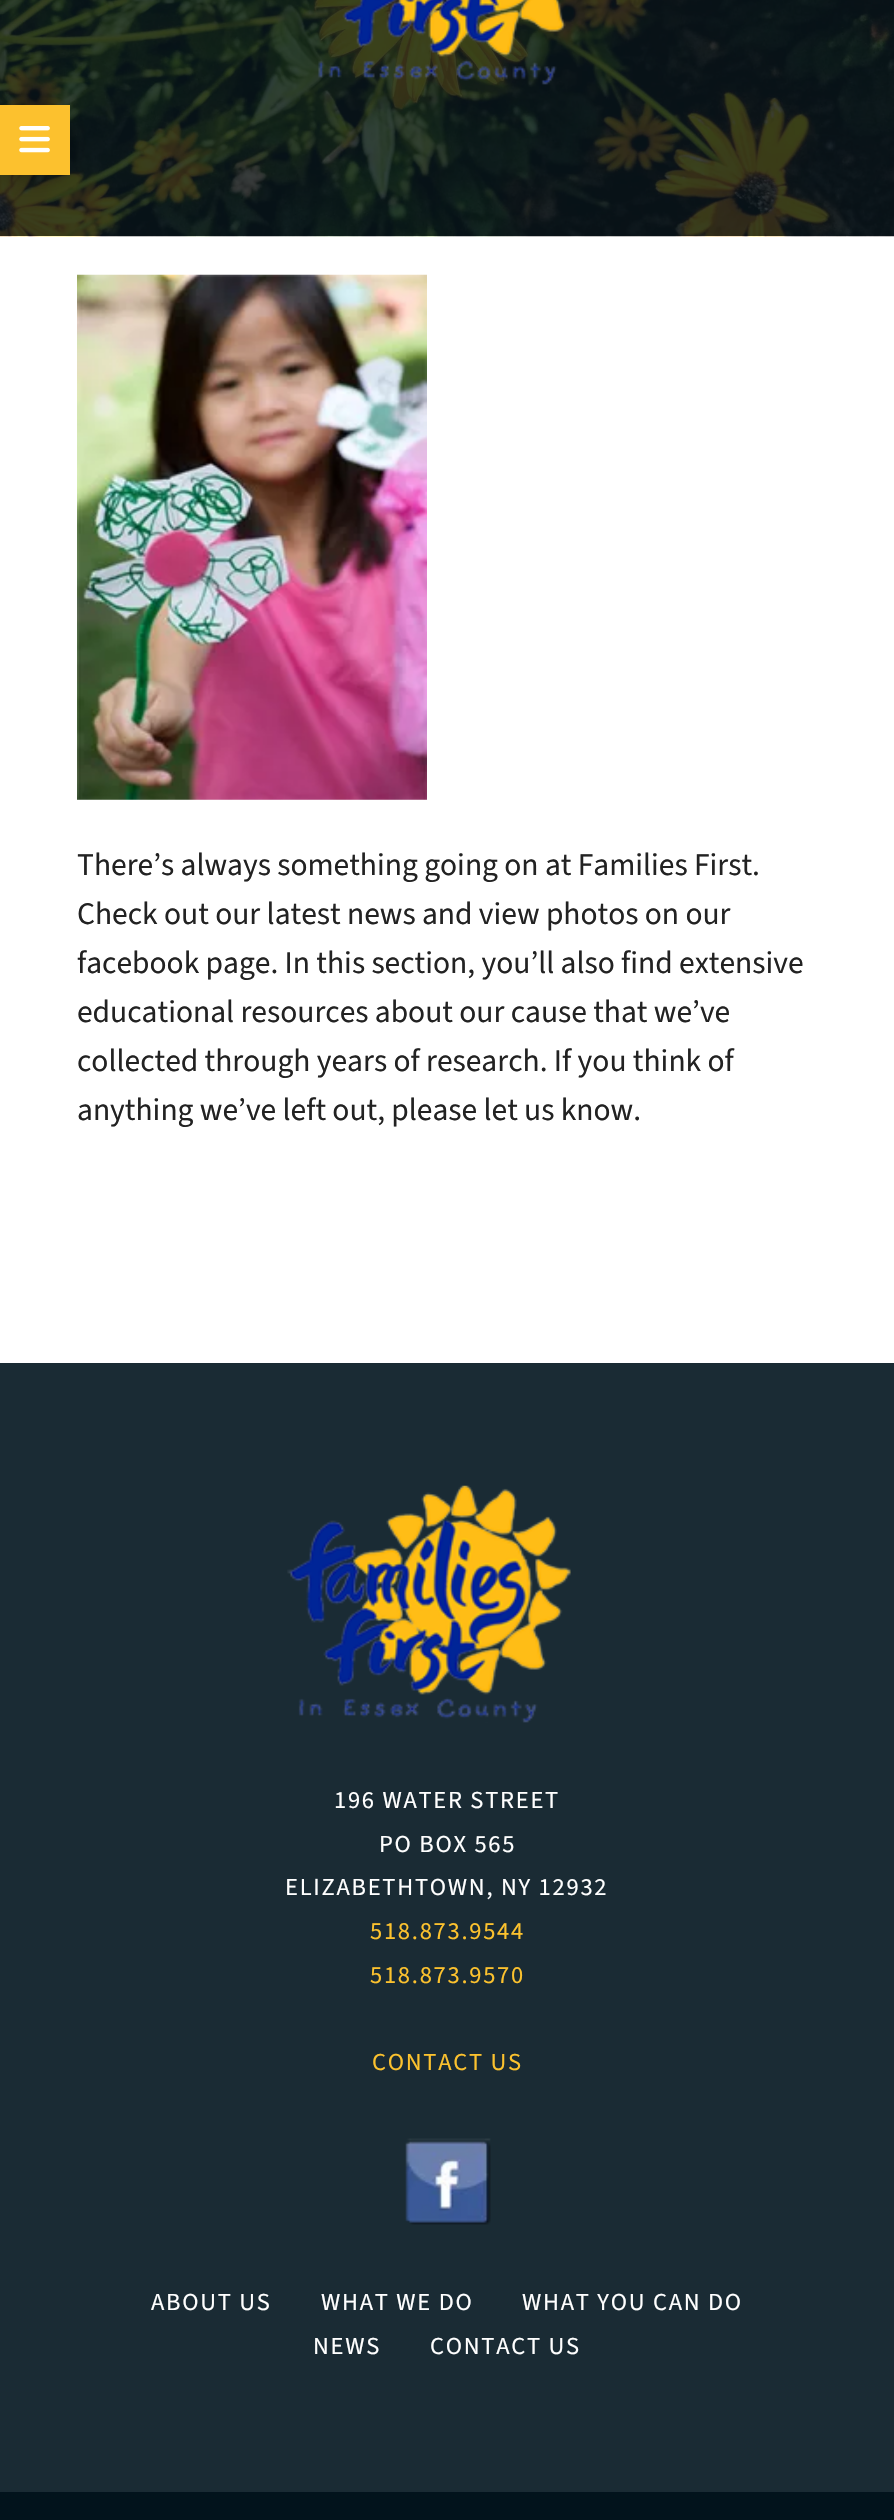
void draw(SkCanvas* c) {
SkPaint p;
p.setAntiAlias(true);
auto F=[&](const char* family, int weight, float size, bool italic = false){SkFontStyle style(weight, SkFontStyle::kNormal_Width,italic ? SkFontStyle::kItalic_Slant : SkFontStyle::kUpright_Slant);SkFont result(fontMgr->matchFamilyStyle(family, style), size);result.setSubpixel(true);return result;};
auto T=[&](const char* s, float x, float y, const SkFont& font){c->drawString(s, x, y, font, p);};
auto L=[&](const char* s, float x, float y, const SkFont& font, const SkPaint& ink, float letter, float word){std::vector<SkGlyphID> glyphs(font.countText(s, strlen(s), SkTextEncoding::kUTF8));std::vector<float> xs(glyphs.size());font.textToGlyphs(s, strlen(s), SkTextEncoding::kUTF8, glyphs);font.getXPos(glyphs, xs, x);float extra = 0;for (size_t i = 0; i < glyphs.size(); i++) {xs[i] += extra;extra += letter + word * (glyphs[i] == font.unicharToGlyph(' '));}c->drawTextBlob(SkTextBlob::MakeFromPosHGlyphs(glyphs, xs, y, font), 0, 0, ink);};
auto R=[&](float x, float y, float w, float h){c->drawRect(SkRect::MakeXYWH(x, y, w, h), p);};
auto I=[&](const char* path, float x, float y, float w, float h){auto image = SkImages::DeferredFromEncodedData(SkData::MakeFromFileName(path));c->drawImageRect(image, SkRect::MakeXYWH(x, y, w, h), SkSamplingOptions());};
c->clear(0xffffffff);
I("1.png",0,0,894,237);
I("2.png",318,0,248,85);
p.setColor(0xff000000);
p.setMaskFilter(SkMaskFilter::MakeBlur(kNormal_SkBlurStyle, 17.5));
c->drawRect(SkRect::MakeXYWH(12,117,46,46),p);
p.setMaskFilter(nullptr);
p.setColor(0xfffcc12e);
R(0,105,70,70);
I("3.png",19,126,31,27);
I("4.png",77,274,350,526);
auto f1 = F("Source Sans 3",400,31.5);
p.setColor(0xff222222);
T("There’s always something going on at Families First.",77,875,f1);
T("Check out our latest news and view photos on our",77,924,f1);
T("facebook page. In this section, you’ll also find extensive",77,973,f1);
T("educational resources about our cause that we’ve",77,1022,f1);
T("collected through years of research. If you think of",77,1071,f1);
T("anything we’ve left out, please let us know.",77,1120,f1);
p.setColor(0xff1a2b34);
R(0,1363,894,1129);
I("5.png",287,1485,284,238);
auto f2 = F("Source Sans 3",400,24.5);
p.setColor(0xffffffff);
L("196 WATER STREET",334,1808,f2,p,1.75,0);
L("PO BOX 565",379,1852,f2,p,1.75,0);
L("ELIZABETHTOWN, NY 12932",285,1895,f2,p,1.75,0);
p.setColor(0xfffcc22e);
L("518.873.9544",370,1939,f2,p,1.75,0);
L("518.873.9570",370,1983,f2,p,1.75,0);
L("CONTACT US",372,2070,f2,p,1.75,0);
I("6.png",405,2138,86,87);
p.setColor(0xffffffff);
L("ABOUT US",151,2310,f2,p,1.75,0);
L("WHAT WE DO",321,2310,f2,p,1.75,0);
L("WHAT YOU CAN DO",522,2310,f2,p,1.75,0);
L("NEWS",313,2354,f2,p,1.75,0);
L("CONTACT US",430,2354,f2,p,1.75,0);
p.setColor(0xff02131c);
R(0,2492,894,28);
}
